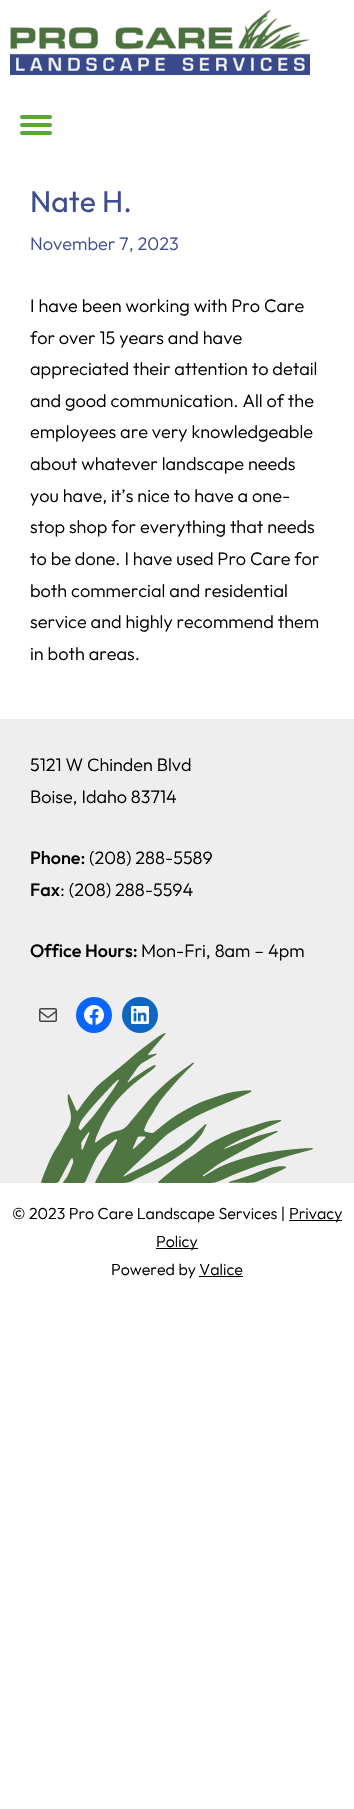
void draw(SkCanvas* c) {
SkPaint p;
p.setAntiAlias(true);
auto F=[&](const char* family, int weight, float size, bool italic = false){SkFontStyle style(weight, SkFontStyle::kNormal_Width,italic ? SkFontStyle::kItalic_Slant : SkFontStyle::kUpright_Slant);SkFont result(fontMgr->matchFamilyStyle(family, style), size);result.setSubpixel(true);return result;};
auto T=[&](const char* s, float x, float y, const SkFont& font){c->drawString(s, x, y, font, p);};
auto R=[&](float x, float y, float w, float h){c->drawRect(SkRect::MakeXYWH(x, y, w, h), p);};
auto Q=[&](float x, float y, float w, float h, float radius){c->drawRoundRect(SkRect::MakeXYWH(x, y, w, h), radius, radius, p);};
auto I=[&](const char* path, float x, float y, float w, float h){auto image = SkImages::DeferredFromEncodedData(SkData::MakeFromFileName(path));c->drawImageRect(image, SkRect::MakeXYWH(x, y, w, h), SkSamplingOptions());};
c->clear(0xffffffff);
I("1.png",10,10,300,65);
p.setColor(0xff53a936);
Q(20,115,32,4,2);
Q(20,123,32,4,2);
Q(20,131,32,4,2);
auto f1 = F("Outfit",400,30);
p.setColor(0xff3e4d90);
T("Nate H.",30,212,f1);
auto f2 = F("Outfit",300,18.1);
T("November 7, 2023",30,250,f2);
p.setColor(0xff000000);
T("I have been working with Pro Care",30,312,f2);
T("for over 15 years and have",30,344,f2);
T("appreciated their attention to detail",30,375,f2);
T("and good communication. All of the",30,407,f2);
T("employees are very knowledgeable",30,438,f2);
T("about whatever landscape needs",30,470,f2);
T("you have, it’s nice to have a one-",30,502,f2);
T("stop shop for everything that needs",30,533,f2);
T("to be done. I have used Pro Care for",30,565,f2);
T("both commercial and residential",30,597,f2);
T("service and highly recommend them",30,628,f2);
T("in both areas.",30,660,f2);
p.setColor(0xffeeeeee);
R(0,719,354,464);
auto f3 = F("Outfit",300,18);
p.setColor(0xff000000);
T("5121 W Chinden Blvd",30,771,f3);
T("Boise, Idaho 83714",30,803,f3);
auto f4 = F("Outfit",500,18);
T("Phone:",30,864,f4);
T("(208) 288-5589",89,864,f3);
T("Fax",30,896,f4);
T(": (208) 288-5594",60,896,f3);
T("Office Hours:",30,957,f4);
T("Mon-Fri, 8am – 4pm",141,957,f3);
I("2.png",39,1008,18,14);
p.setColor(0xff0866ff);
c->drawCircle(94,1015,18,p);
I("3.png",84,1005,20,20);
p.setColor(0xff0d66c2);
c->drawCircle(140,1015,18,p);
I("4.png",131,1006,18,18);
I("5.png",41,1033,272,150);
auto f5 = F("Outfit",300,16);
p.setColor(0xff000000);
T("© 2023 Pro Care Landscape Services |",12,1219,f5);
R(289,1220,53,1);
T("Privacy",289,1219,f5);
R(156,1248,42,1);
T("Policy",156,1247,f5);
T("Powered by Valice",111,1275,f5);
R(199,1276,44,1);
}
